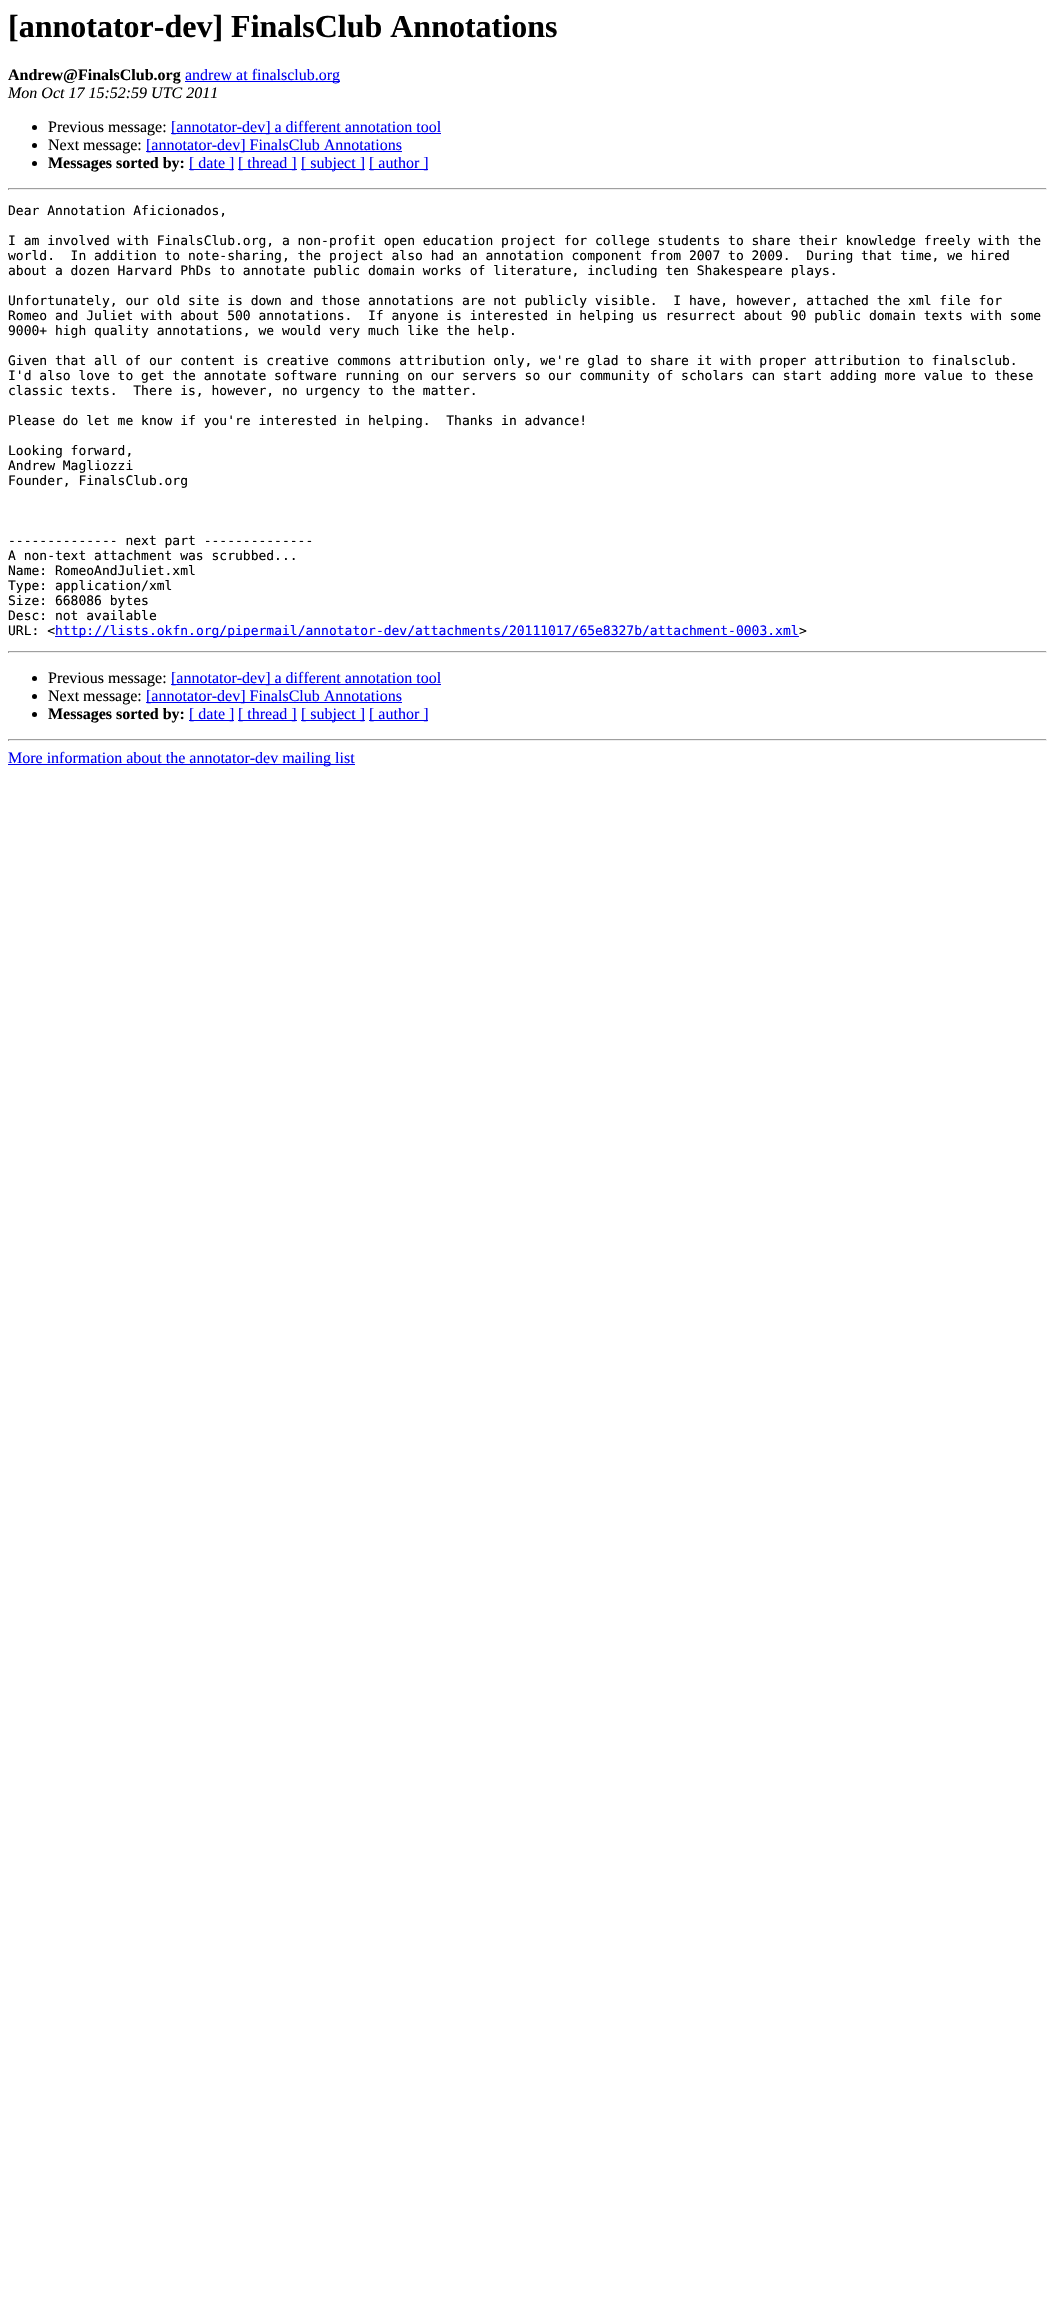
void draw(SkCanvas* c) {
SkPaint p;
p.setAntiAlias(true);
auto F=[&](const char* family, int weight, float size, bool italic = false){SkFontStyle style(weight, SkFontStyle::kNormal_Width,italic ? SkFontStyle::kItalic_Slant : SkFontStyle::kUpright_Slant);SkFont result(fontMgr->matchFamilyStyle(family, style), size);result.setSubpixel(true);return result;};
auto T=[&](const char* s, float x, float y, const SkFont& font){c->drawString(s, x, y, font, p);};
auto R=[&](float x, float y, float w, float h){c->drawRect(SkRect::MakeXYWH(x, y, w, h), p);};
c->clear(0xffffffff);
auto f1 = F("Liberation Serif",700,32);
p.setColor(0xff000000);
T("[annotator-dev] FinalsClub Annotations",8,37,f1);
auto f2 = F("Liberation Serif",700,16);
T("Andrew@FinalsClub.org",8,80,f2);
p.setColor(0xff0000ee);
R(185,81,155,1);
auto f3 = F("Liberation Serif",400,16);
T("andrew at finalsclub.org",185,80,f3);
auto f4 = F("Liberation Serif",400,16,true);
p.setColor(0xff000000);
T("Mon Oct 17 15:52:59 UTC 2011",8,98,f4);
c->drawCircle(34.5,127.5,2.5,p);
T("Previous message:",48,132,f3);
p.setColor(0xff0000ee);
R(171,133,270,1);
T("[annotator-dev] a different annotation tool",171,132,f3);
p.setColor(0xff000000);
c->drawCircle(34.5,145.5,2.5,p);
T("Next message:",48,150,f3);
p.setColor(0xff0000ee);
R(146,151,256,1);
T("[annotator-dev] FinalsClub Annotations",146,150,f3);
p.setColor(0xff000000);
c->drawCircle(34.5,163.5,2.5,p);
T("Messages sorted by:",48,168,f2);
p.setColor(0xff0000ee);
R(189,169,45,1);
T("[ date ]",189,168,f3);
R(238,169,59,1);
T("[ thread ]",238,168,f3);
R(301,169,64,1);
T("[ subject ]",301,168,f3);
R(369,169,59,1);
T("[ author ]",369,168,f3);
p.setColor(0xff9f9f9f);
R(8,188,1039,1);
p.setColor(0xffeeeeee);
R(1046,188,1,2);
R(8,189,1039,1);
p.setColor(0xff9f9f9f);
R(8,188,1,2);
auto f5 = F("DejaVu Sans Mono",400,13);
p.setColor(0xff000000);
T("Dear Annotation Aficionados,",8,215,f5);
T("I am involved with FinalsClub.org, a non-profit open education project for college students to share their knowledge freely with the",8,245,f5);
T("world.  In addition to note-sharing, the project also had an annotation component from 2007 to 2009.  During that time, we hired",8,260,f5);
T("about a dozen Harvard PhDs to annotate public domain works of literature, including ten Shakespeare plays.",8,275,f5);
T("Unfortunately, our old site is down and those annotations are not publicly visible.  I have, however, attached the xml file for",8,305,f5);
T("Romeo and Juliet with about 500 annotations.  If anyone is interested in helping us resurrect about 90 public domain texts with some",8,320,f5);
T("9000+ high quality annotations, we would very much like the help.",8,335,f5);
T("Given that all of our content is creative commons attribution only, we're glad to share it with proper attribution to finalsclub.",8,365,f5);
T("I'd also love to get the annotate software running on our servers so our community of scholars can start adding more value to these",8,380,f5);
T("classic texts.  There is, however, no urgency to the matter.",8,395,f5);
T("Please do let me know if you're interested in helping.  Thanks in advance!",8,425,f5);
T("Looking forward,",8,455,f5);
T("Andrew Magliozzi",8,470,f5);
T("Founder, FinalsClub.org",8,485,f5);
T("-------------- next part --------------",8,545,f5);
T("A non-text attachment was scrubbed...",8,560,f5);
T("Name: RomeoAndJuliet.xml",8,575,f5);
T("Type: application/xml",8,590,f5);
T("Size: 668086 bytes",8,605,f5);
T("Desc: not available",8,620,f5);
T("URL: <",8,635,f5);
p.setColor(0xff0000ee);
R(55,636,744,1);
T("http://lists.okfn.org/pipermail/annotator-dev/attachments/20111017/65e8327b/attachment-0003.xml",55,635,f5);
p.setColor(0xff000000);
T(">",799,635,f5);
p.setColor(0xff9f9f9f);
R(8,651,1039,1);
p.setColor(0xffeeeeee);
R(1046,651,1,2);
R(8,652,1039,1);
p.setColor(0xff9f9f9f);
R(8,651,1,2);
p.setColor(0xff000000);
c->drawCircle(34.5,678.5,2.5,p);
T("Previous message:",48,683,f3);
p.setColor(0xff0000ee);
R(171,684,270,1);
T("[annotator-dev] a different annotation tool",171,683,f3);
p.setColor(0xff000000);
c->drawCircle(34.5,696.5,2.5,p);
T("Next message:",48,701,f3);
p.setColor(0xff0000ee);
R(146,702,256,1);
T("[annotator-dev] FinalsClub Annotations",146,701,f3);
p.setColor(0xff000000);
c->drawCircle(34.5,714.5,2.5,p);
T("Messages sorted by:",48,719,f2);
p.setColor(0xff0000ee);
R(189,720,45,1);
T("[ date ]",189,719,f3);
R(238,720,59,1);
T("[ thread ]",238,719,f3);
R(301,720,64,1);
T("[ subject ]",301,719,f3);
R(369,720,59,1);
T("[ author ]",369,719,f3);
p.setColor(0xff9f9f9f);
R(8,739,1039,1);
p.setColor(0xffeeeeee);
R(1046,739,1,2);
R(8,740,1039,1);
p.setColor(0xff9f9f9f);
R(8,739,1,2);
p.setColor(0xff0000ee);
R(8,764,347,1);
T("More information about the annotator-dev mailing list",8,763,f3);
}
